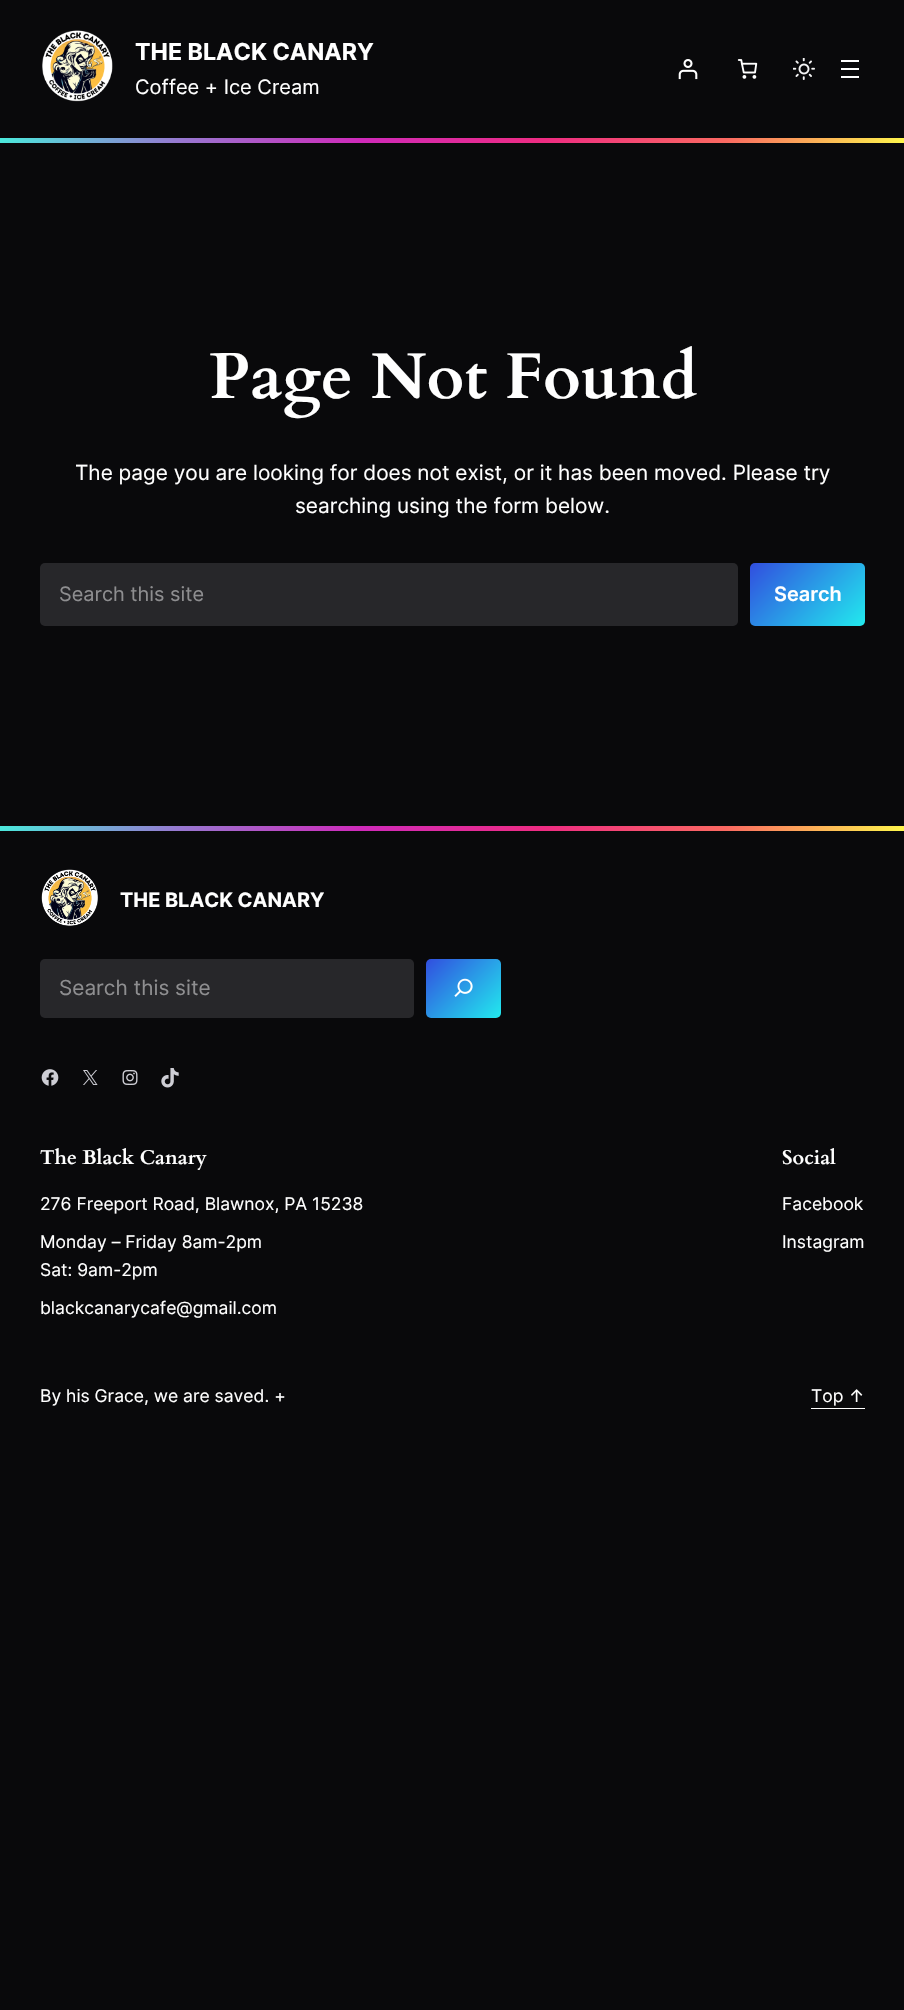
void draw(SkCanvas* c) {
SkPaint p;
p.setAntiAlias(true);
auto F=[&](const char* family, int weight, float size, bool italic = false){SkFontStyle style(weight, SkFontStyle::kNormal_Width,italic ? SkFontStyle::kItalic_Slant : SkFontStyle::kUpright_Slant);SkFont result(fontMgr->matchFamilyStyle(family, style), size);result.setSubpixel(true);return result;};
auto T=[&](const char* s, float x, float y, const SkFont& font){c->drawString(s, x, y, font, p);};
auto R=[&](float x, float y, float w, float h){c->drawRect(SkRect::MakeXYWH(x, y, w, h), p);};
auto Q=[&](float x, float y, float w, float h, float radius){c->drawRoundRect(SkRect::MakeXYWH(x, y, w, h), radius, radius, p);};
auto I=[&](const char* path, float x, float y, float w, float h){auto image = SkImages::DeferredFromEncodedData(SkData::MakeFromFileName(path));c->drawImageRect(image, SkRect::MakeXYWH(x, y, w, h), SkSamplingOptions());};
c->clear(0xff09090b);
I("1.png",42,30,71,72);
auto f1 = F("Inter",700,23.25);
p.setColor(0xffffffff);
T("THE BLACK CANARY",135,60,f1);
auto f2 = F("Inter",400,20);
T("Coffee + Ice Cream",135,94,f2);
I("2.png",678,59,20,21);
I("3.png",737,59,21,20);
I("4.png",793,58,22,22);
R(841,60,18,2);
R(841,68,18,2);
R(841,76,18,2);
{
const SkColor colors[] = {0xff4aeadc,0xff9778d1,0xffcf2aba,0xffee2c82,0xfffb6962,0xfffef84c};
const float stops[] = {0,.2,.4,.6,.8,1};
const SkPoint ends[] = {{225,-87}, {680,368}};
p.setShader(SkGradientShader::MakeLinear(ends, colors, stops, 6, SkTileMode::kClamp));
p.setAlpha(255);
}
R(0,138,904,5);
auto f3 = F("Cardo",700,64.75);
p.setShader(nullptr);
p.setColor(0xffffffff);
T("Page Not Found",209,398,f3);
auto f4 = F("Inter",400,20.8);
T("The page you are looking for does not exist, or it has been moved. Please try",75,480,f4);
T("searching using the form below.",295,513,f4);
p.setColor(0xff27272a);
Q(40,563,698,63,5);
auto f5 = F("Inter",400,19.9);
p.setColor(0xff8e8e90);
T("Search this site",59,601,f5);
{
const SkColor colors[] = {0xff314edf,0xff22eaee};
const float stops[] = {0,1};
const SkPoint ends[] = {{763,550}, {852,639}};
p.setShader(SkGradientShader::MakeLinear(ends, colors, stops, 2, SkTileMode::kClamp));
p.setAlpha(255);
}
Q(750,563,115,63,5);
auto f6 = F("Inter",600,19.9);
p.setShader(nullptr);
p.setColor(0xffffffff);
T("Search",774,601,f6);
{
const SkColor colors[] = {0xff4aeadc,0xff9778d1,0xffcf2aba,0xffee2c82,0xfffb6962,0xfffef84c};
const float stops[] = {0,.2,.4,.6,.8,1};
const SkPoint ends[] = {{225,601}, {680,1056}};
p.setShader(SkGradientShader::MakeLinear(ends, colors, stops, 6, SkTileMode::kClamp));
p.setAlpha(255);
}
R(0,826,904,5);
I("5.png",41,869,57,57);
auto f7 = F("Inter",700,19.9);
p.setShader(nullptr);
p.setColor(0xffffffff);
T("THE BLACK CANARY",120,907,f7);
p.setColor(0xff27272a);
Q(40,959,374,59,5);
p.setColor(0xff8e8e90);
T("Search this site",59,995,f4);
{
const SkColor colors[] = {0xff314edf,0xff22eaee};
const float stops[] = {0,1};
const SkPoint ends[] = {{430,955}, {497,1022}};
p.setShader(SkGradientShader::MakeLinear(ends, colors, stops, 2, SkTileMode::kClamp));
p.setAlpha(255);
}
Q(426,959,75,59,5);
I("6.png",454,978,19,19);
I("7.png",41,1069,18,17);
I("8.png",83,1070,15,15);
I("9.png",122,1070,16,15);
I("10.png",161,1068,18,20);
auto f8 = F("Cardo",700,19.9);
p.setShader(nullptr);
p.setColor(0xffffffff);
T("The Black Canary",40,1164,f8);
auto f9 = F("Inter",400,17.5);
T("276 Freeport Road, Blawnox, PA 15238",40,1210,f9);
T("Monday – Friday 8am-2pm",40,1248,f9);
T("Sat: 9am-2pm",40,1276,f9);
T("blackcanarycafe@gmail.com",40,1314,f9);
T("Social",782,1164,f8);
T("Facebook",782,1210,f9);
T("Instagram",782,1248,f9);
T("By his Grace, we are saved. +",40,1402,f9);
T("Top ↑",811,1402,f9);
R(811,1408,54,1);
}
